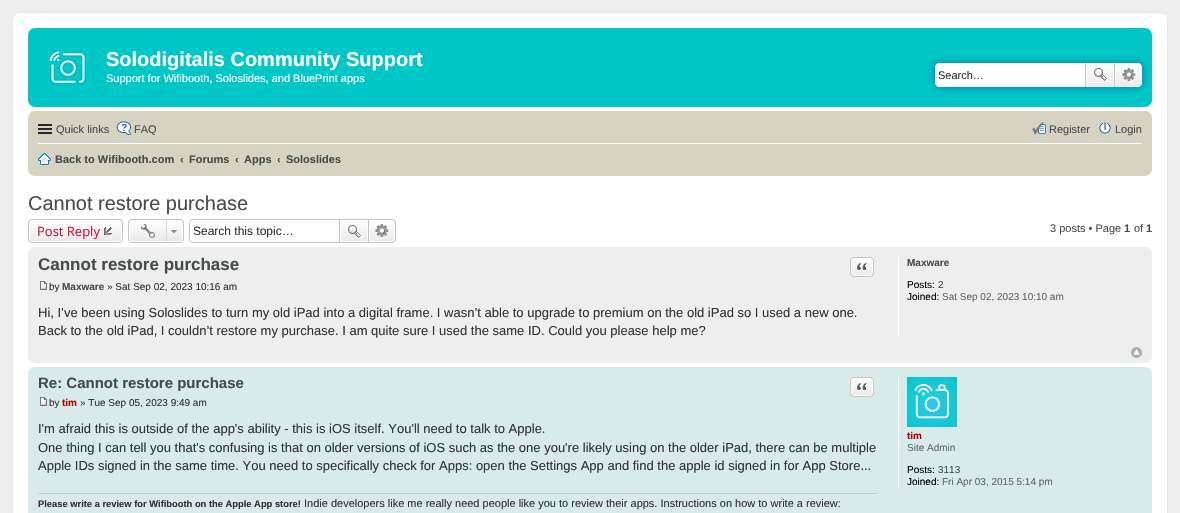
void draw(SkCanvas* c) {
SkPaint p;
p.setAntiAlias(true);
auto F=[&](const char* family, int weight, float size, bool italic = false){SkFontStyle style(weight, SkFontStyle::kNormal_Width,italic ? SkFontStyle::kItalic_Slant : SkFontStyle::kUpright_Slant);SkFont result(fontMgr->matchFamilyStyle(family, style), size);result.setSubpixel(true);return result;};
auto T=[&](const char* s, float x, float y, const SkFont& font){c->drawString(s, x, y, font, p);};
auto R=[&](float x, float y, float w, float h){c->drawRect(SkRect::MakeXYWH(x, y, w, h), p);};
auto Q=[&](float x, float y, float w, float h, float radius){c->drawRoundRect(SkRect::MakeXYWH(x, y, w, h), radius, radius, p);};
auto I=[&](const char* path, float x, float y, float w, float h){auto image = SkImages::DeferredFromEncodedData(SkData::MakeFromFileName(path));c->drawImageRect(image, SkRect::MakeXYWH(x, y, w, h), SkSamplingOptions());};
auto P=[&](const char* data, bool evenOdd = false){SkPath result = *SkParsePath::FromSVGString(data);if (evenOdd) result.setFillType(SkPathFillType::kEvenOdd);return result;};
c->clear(0xffeeeeee);
p.setColor(0xffffffff);
c->drawRoundRect(SkRect::MakeXYWH(12.5,12.5,1155,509),7.5,7.5,p);
p.setStroke(true);
p.setStrokeWidth(1);
p.setColor(0xffe6e9ed);
c->drawRoundRect(SkRect::MakeXYWH(12.5,12.5,1155,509),7.5,7.5,p);
p.setStroke(false);
p.setColor(0xff00c7c7);
Q(28,28,1124,79,7);
I("1.png",48,50,38,34);
auto f1 = F("Liberation Sans",700,20);
p.setColor(0xffffffff);
T("Solodigitalis Community Support",106,66,f1);
auto f2 = F("Liberation Sans",400,11);
T("Support for Wifibooth, Soloslides, and BluePrint apps",106,82,f2);
p.setColor(0xff0075b0);
p.setMaskFilter(SkMaskFilter::MakeBlur(kNormal_SkBlurStyle, 5));
c->drawRoundRect(SkRect::MakeXYWH(935,63,207,24),4,4,p);
p.setMaskFilter(nullptr);
p.setColor(0xffffffff);
c->drawPath(P("M939 63h146v24h-146c-2 0-4-2-4-4v-16c0-2 2-4 4-4z"),p);
p.setColor(0xff333333);
T("Search…",938,79,f2);
{
const SkColor colors[] = {0xffffffff,0xffe9e9e9};
const float stops[] = {0,1};
const SkPoint ends[] = {{1100,63}, {1100,87}};
p.setShader(SkGradientShader::MakeLinear(ends, colors, stops, 2, SkTileMode::kClamp));
p.setAlpha(255);
}
R(1087,64,26,22);
p.setStroke(true);
p.setShader(nullptr);
p.setColor(0xffffffff);
c->drawRect(SkRect::MakeXYWH(1086.5,63.5,27,23),p);
p.setStroke(false);
p.setColor(0xffc7c3bf);
R(1114,63,1,24);
R(1085,63,1,24);
I("2.png",1094,68,13,13);
{
const SkColor colors[] = {0xffffffff,0xffe9e9e9};
const float stops[] = {0,1};
const SkPoint ends[] = {{1129,63}, {1129,87}};
p.setShader(SkGradientShader::MakeLinear(ends, colors, stops, 2, SkTileMode::kClamp));
p.setAlpha(255);
}
c->drawPath(P("M1115.5 63.5h22.5c2 0 3.5 1.5 3.5 3.5v16c0 2-1.5 3.5-3.5 3.5h-22.5z"),p);
p.setStroke(true);
p.setShader(nullptr);
p.setColor(0xffffffff);
c->drawPath(P("M1115.5 63.5h22.5c2 0 3.5 1.5 3.5 3.5v16c0 2-1.5 3.5-3.5 3.5h-22.5z"),p);
I("3.png",1122,68,14,13);
p.setStroke(false);
p.setColor(0xffd7d3c2);
Q(28,111,1124,65,7);
p.setColor(0xff27282d);
R(38,124,14,2);
R(38,128,14,2);
R(38,132,14,2);
p.setColor(0xff464d4b);
T("Quick links",56,133,f2);
I("4.png",116,121,16,14);
T("FAQ",134,133,f2);
I("5.png",1032,122,14,13);
T("Register",1049,133,f2);
I("6.png",1099,122,12,12);
T("Login",1115,133,f2);
p.setColor(0xffffffff);
R(38,143,1104,1);
I("7.png",38,153,13,12);
auto f3 = F("Liberation Sans",700,11);
p.setColor(0xff464d4b);
T("Back to Wifibooth.com",55,163,f3);
T("‹",180,163,f3);
T("Forums",189,163,f3);
T("‹",235,163,f3);
T("Apps",244,163,f3);
T("‹",277,163,f3);
T("Soloslides",286,163,f3);
auto f4 = F("Liberation Sans",400,20);
T("Cannot restore purchase",28,210,f4);
c->save();
c->clipPath(P("M32 219h87c2 0 4 2 4 4v16c0 2-2 4-4 4h-87c-2 0-4-2-4-4v-16c0-2 2-4 4-4z"),true);
{
const SkColor colors[] = {0xffffffff,0xffe9e9e9};
const float stops[] = {0,1};
const SkPoint ends[] = {{76,220}, {76,242}};
p.setShader(SkGradientShader::MakeLinear(ends, colors, stops, 2, SkTileMode::kClamp));
p.setAlpha(255);
}
R(28,220,95,22);
c->restore();
p.setStroke(true);
p.setShader(nullptr);
p.setColor(0xffffffff);
c->drawRoundRect(SkRect::MakeXYWH(29.5,220.5,92,21),2.5,2.5,p);
p.setColor(0xffc7c3bf);
c->drawRoundRect(SkRect::MakeXYWH(28.5,219.5,94,23),3.5,3.5,p);
auto f5 = F("Open Sans",400,13);
p.setStroke(false);
p.setColor(0xffd31141);
T("Post Reply",37,236,f5);
I("8.png",103,227,10,9);
c->save();
c->clipPath(P("M132 219h48c2 0 4 2 4 4v16c0 2-2 4-4 4h-48c-2 0-4-2-4-4v-16c0-2 2-4 4-4z"),true);
{
const SkColor colors[] = {0xffffffff,0xffe9e9e9};
const float stops[] = {0,1};
const SkPoint ends[] = {{156,220}, {156,242}};
p.setShader(SkGradientShader::MakeLinear(ends, colors, stops, 2, SkTileMode::kClamp));
p.setAlpha(255);
}
R(128,220,56,22);
c->restore();
p.setStroke(true);
p.setShader(nullptr);
p.setColor(0xffffffff);
c->drawRoundRect(SkRect::MakeXYWH(129.5,220.5,53,21),2.5,2.5,p);
p.setColor(0xffc7c3bf);
c->drawRoundRect(SkRect::MakeXYWH(128.5,219.5,55,23),3.5,3.5,p);
I("9.png",141,224,14,15);
I("10.png",170,230,8,4);
p.setStroke(false);
p.setColor(0xffdadada);
R(166,220,1,22);
p.setColor(0xffc7c3bf);
c->drawPath(P("M193 219h146v24h-146c-2 0-4-2-4-4v-16c0-2 2-4 4-4zm0 1h146v22h-146c-2 0-3-1-3-3v-16c0-2 1-3 3-3z",true),p);
auto f6 = F("Liberation Sans",400,12);
p.setColor(0xff333333);
T("Search this topic…",193,235,f6);
{
const SkColor colors[] = {0xffffffff,0xffe9e9e9};
const float stops[] = {0,1};
const SkPoint ends[] = {{354,220}, {354,242}};
p.setShader(SkGradientShader::MakeLinear(ends, colors, stops, 2, SkTileMode::kClamp));
p.setAlpha(255);
}
R(341,223,26,18);
p.setStroke(true);
p.setShader(nullptr);
p.setColor(0xffc7c3bf);
c->drawRect(SkRect::MakeXYWH(339.5,219.5,29,23),p);
I("11.png",348,225,13,13);
p.setStroke(false);
{
const SkColor colors[] = {0xffffffff,0xffe9e9e9};
const float stops[] = {0,1};
const SkPoint ends[] = {{382,220}, {382,242}};
p.setShader(SkGradientShader::MakeLinear(ends, colors, stops, 2, SkTileMode::kClamp));
p.setAlpha(255);
}
c->drawPath(P("M369.5 220.5h22.5c1.5 0 2.5 1 2.5 2.5v16c0 1.5-1 2.5-2.5 2.5h-22.5z"),p);
p.setStroke(true);
p.setShader(nullptr);
p.setColor(0xffffffff);
c->drawPath(P("M369.5 220.5h22.5c1.5 0 2.5 1 2.5 2.5v16c0 1.5-1 2.5-2.5 2.5h-22.5z"),p);
p.setStroke(false);
p.setColor(0xffc7c3bf);
c->drawPath(P("M369 219h23c2 0 4 2 4 4v16c0 2-2 4-4 4h-23zm0 1h23c1.5 0 3 1.5 3 3v16c0 1.5-1.5 3-3 3h-23z",true),p);
I("12.png",375,224,14,13);
p.setColor(0xff464d4b);
T("3 posts • Page",1050,232,f2);
T("1",1124,232,f3);
T("of",1134,232,f2);
T("1",1146,232,f3);
p.setColor(0xffeeeeee);
Q(28,247,1124,116,7);
auto f7 = F("Liberation Sans",700,17);
p.setColor(0xff464d4b);
T("Cannot restore purchase",38,270,f7);
c->save();
c->clipPath(P("M854 257h16c2 0 4 2 4 4v12c0 2-2 4-4 4h-16c-2 0-4-2-4-4v-12c0-2 2-4 4-4z"),true);
{
const SkColor colors[] = {0xffffffff,0xffe9e9e9};
const float stops[] = {0,1};
const SkPoint ends[] = {{862,258}, {862,276}};
p.setShader(SkGradientShader::MakeLinear(ends, colors, stops, 2, SkTileMode::kClamp));
p.setAlpha(255);
}
R(850,258,24,18);
c->restore();
p.setStroke(true);
p.setShader(nullptr);
p.setColor(0xffffffff);
c->drawRoundRect(SkRect::MakeXYWH(851.5,258.5,21,17),2.5,2.5,p);
p.setColor(0xffc7c3bf);
c->drawRoundRect(SkRect::MakeXYWH(850.5,257.5,23,19),3.5,3.5,p);
I("13.png",856,263,11,8);
I("14.png",40,281,7,9);
auto f8 = F("Liberation Sans",400,10);
p.setStroke(false);
p.setColor(0xff333333);
T("by",49,290,f8);
auto f9 = F("Liberation Sans",700,10);
p.setColor(0xff464d4b);
T("Maxware",62,290,f9);
p.setColor(0xff333333);
T("» Sat Sep 02, 2023 10:16 am",107,290,f8);
auto f10 = F("Liberation Sans",400,13);
T("Hi, I’ve been using Soloslides to turn my old iPad into a digital frame. I wasn’t able to upgrade to premium on the old iPad so I used a new one.",38,317,f10);
T("Back to the old iPad, I couldn’t restore my purchase. I am quite sure I used the same ID. Could you please help me?",38,335,f10);
p.setColor(0xffffffff);
R(898,257,1,80);
p.setColor(0xff464d4b);
T("Maxware",907,266,f9);
p.setColor(0xff000000);
T("Posts:",907,288,f8);
p.setColor(0xff464d4b);
T("2",938,288,f8);
p.setColor(0xff000000);
T("Joined:",907,300,f8);
p.setColor(0xff666666);
T("Sat Sep 02, 2023 10:10 am",942,300,f8);
I("15.png",1131,347,11,11);
p.setColor(0xffd8eaea);
Q(28,367,1124,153,7);
auto f11 = F("Liberation Sans",700,15);
p.setColor(0xff464d4b);
T("Re: Cannot restore purchase",38,388,f11);
c->save();
c->clipPath(P("M854 377h16c2 0 4 2 4 4v12c0 2-2 4-4 4h-16c-2 0-4-2-4-4v-12c0-2 2-4 4-4z"),true);
{
const SkColor colors[] = {0xffffffff,0xffe9e9e9};
const float stops[] = {0,1};
const SkPoint ends[] = {{862,378}, {862,396}};
p.setShader(SkGradientShader::MakeLinear(ends, colors, stops, 2, SkTileMode::kClamp));
p.setAlpha(255);
}
R(850,378,24,18);
c->restore();
p.setStroke(true);
p.setShader(nullptr);
p.setColor(0xffffffff);
c->drawRoundRect(SkRect::MakeXYWH(851.5,378.5,21,17),2.5,2.5,p);
p.setColor(0xffc7c3bf);
c->drawRoundRect(SkRect::MakeXYWH(850.5,377.5,23,19),3.5,3.5,p);
I("13.png",856,383,11,8);
I("16.png",40,397,7,9);
p.setStroke(false);
p.setColor(0xff333333);
T("by",49,406,f8);
p.setColor(0xffaa0000);
T("tim",62,406,f9);
p.setColor(0xff333333);
T("» Tue Sep 05, 2023 9:49 am",80,406,f8);
T("I'm afraid this is outside of the app's ability - this is iOS itself. You'll need to talk to Apple.",38,433,f10);
T("One thing I can tell you that's confusing is that on older versions of iOS such as the one you're likely using on the older iPad, there can be multiple",38,452,f10);
T("Apple IDs signed in the same time. You need to specifically check for Apps: open the Settings App and find the apple id signed in for App Store...",38,470,f10);
p.setColor(0xffcccccc);
R(38,493,839,1);
auto f12 = F("Liberation Sans",700,9.35);
p.setColor(0xff333333);
T("Please write a review for Wifibooth on the Apple App store!",38,507,f12);
T("Indie developers like me really need people like you to review their apps. Instructions on how to write a review:",304,507,f2);
p.setColor(0xffffffff);
R(898,377,1,111);
I("17.png",907,377,50,50);
p.setColor(0xffaa0000);
T("tim",907,439,f9);
p.setColor(0xff666666);
T("Site Admin",907,451,f8);
p.setColor(0xff000000);
T("Posts:",907,473,f8);
p.setColor(0xff464d4b);
T("3113",938,473,f8);
p.setColor(0xff000000);
T("Joined:",907,485,f8);
p.setColor(0xff666666);
T("Fri Apr 03, 2015 5:14 pm",942,485,f8);
}
